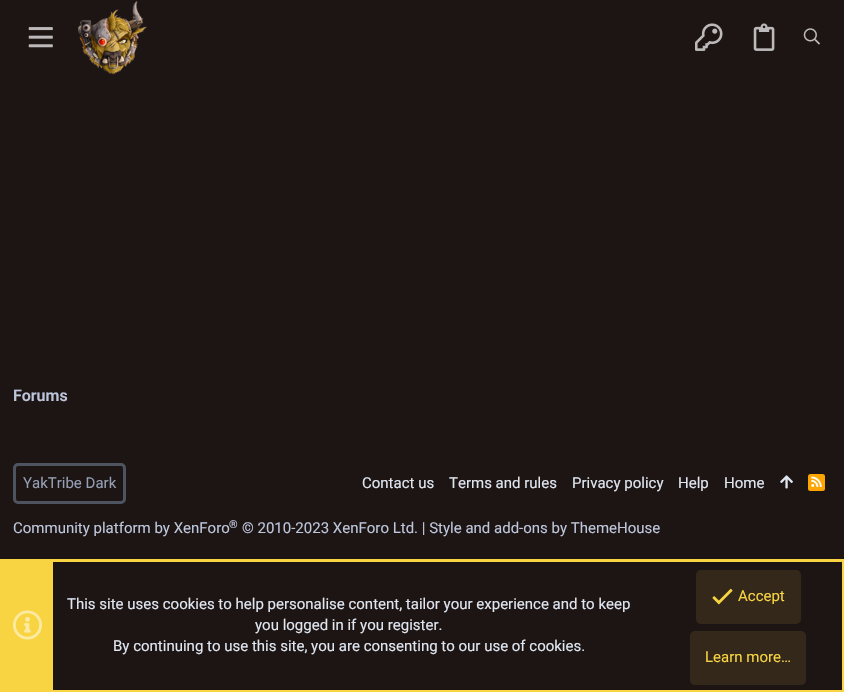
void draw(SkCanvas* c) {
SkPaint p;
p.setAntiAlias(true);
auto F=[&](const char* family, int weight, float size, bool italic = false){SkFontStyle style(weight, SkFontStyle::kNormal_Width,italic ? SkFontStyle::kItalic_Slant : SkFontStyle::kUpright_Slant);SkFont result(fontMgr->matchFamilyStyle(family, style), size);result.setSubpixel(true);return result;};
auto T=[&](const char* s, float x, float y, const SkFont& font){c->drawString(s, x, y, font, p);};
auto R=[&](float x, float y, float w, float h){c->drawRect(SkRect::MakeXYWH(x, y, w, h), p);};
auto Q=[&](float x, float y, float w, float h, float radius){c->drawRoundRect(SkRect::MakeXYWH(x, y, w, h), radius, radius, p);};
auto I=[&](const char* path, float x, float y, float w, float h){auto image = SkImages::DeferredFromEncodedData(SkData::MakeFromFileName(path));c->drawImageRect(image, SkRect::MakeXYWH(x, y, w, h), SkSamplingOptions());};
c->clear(0xff1d1514);
I("1.png",28,27,25,21);
I("2.png",78,1,69,74);
I("3.png",695,23,28,28);
I("4.png",753,23,22,28);
I("5.png",803,28,17,17);
auto f1 = F("Roboto",600,16);
p.setColor(0xffbdc6db);
T("Forums",13,401,f1);
p.setStroke(true);
p.setStrokeWidth(3);
p.setColor(0xff4d5460);
c->drawRoundRect(SkRect::MakeXYWH(14.5,464.5,110,38),3.5,3.5,p);
auto f2 = F("Roboto",400,15);
p.setStroke(false);
p.setColor(0xff959fb4);
T("YakTribe Dark",23,488,f2);
p.setColor(0xffe0e6f0);
T("Contact us",362,488,f2);
T("Terms and rules",449,488,f2);
T("Privacy policy",572,488,f2);
T("Help",678,488,f2);
T("Home",724,488,f2);
I("6.png",780,475,13,14);
p.setColor(0xffffa500);
Q(808,474,17,17,2.5);
I("7.png",811,476,11,11);
p.setColor(0xffbdc6db);
T("Community platform by XenForo",13,533,f2);
auto f3 = F("Roboto",400,11);
T("®",229,528,f3);
T("© 2010-2023 XenForo Ltd. | Style and add-ons by ThemeHouse",242,533,f2);
p.setStroke(true);
p.setColor(0xfff8d442);
c->drawRect(SkRect::MakeXYWH(1.5,560.5,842,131),p);
p.setStroke(false);
R(3,562,50,128);
I("8.png",13,610,29,30);
p.setColor(0xffe0e6f0);
T("This site uses cookies to help personalise content, tailor your experience and to keep",67,609,f2);
T("you logged in if you register.",255,630,f2);
T("By continuing to use this site, you are consenting to our use of cookies.",113,651,f2);
p.setColor(0xff332819);
Q(696,570,105,54,5);
I("9.png",712,588,21,17);
p.setColor(0xfff8d442);
T("Accept",738,601,f2);
p.setColor(0xff332819);
Q(690,631,116,54,5);
p.setColor(0xfff8d442);
T("Learn more…",705,662,f2);
}
